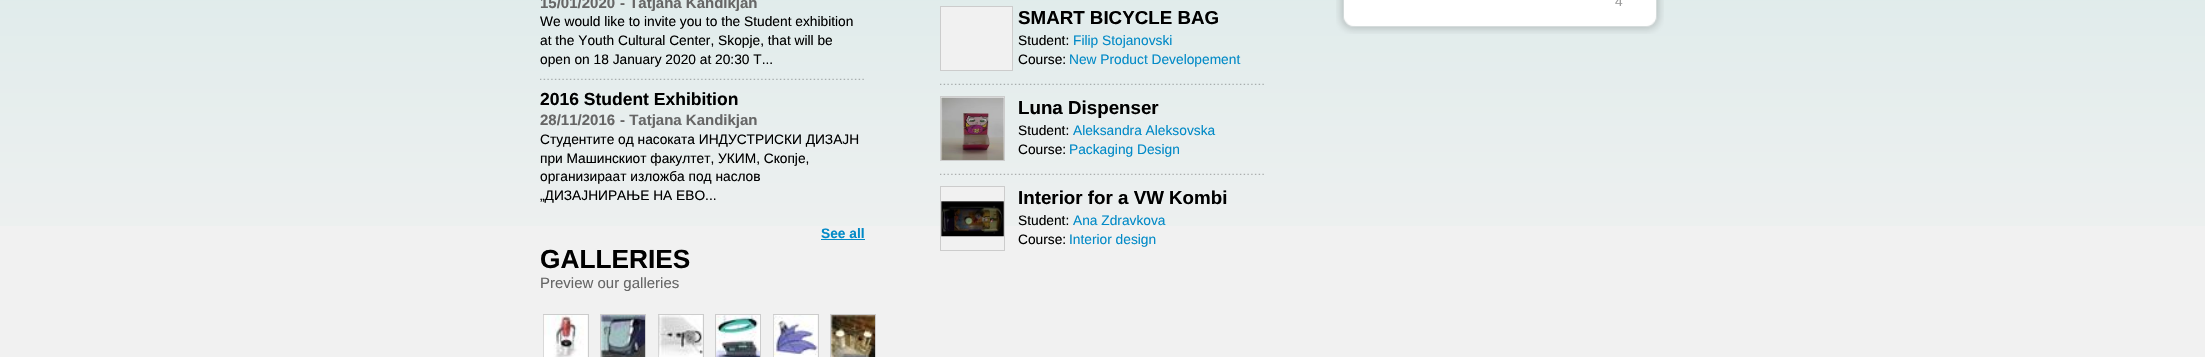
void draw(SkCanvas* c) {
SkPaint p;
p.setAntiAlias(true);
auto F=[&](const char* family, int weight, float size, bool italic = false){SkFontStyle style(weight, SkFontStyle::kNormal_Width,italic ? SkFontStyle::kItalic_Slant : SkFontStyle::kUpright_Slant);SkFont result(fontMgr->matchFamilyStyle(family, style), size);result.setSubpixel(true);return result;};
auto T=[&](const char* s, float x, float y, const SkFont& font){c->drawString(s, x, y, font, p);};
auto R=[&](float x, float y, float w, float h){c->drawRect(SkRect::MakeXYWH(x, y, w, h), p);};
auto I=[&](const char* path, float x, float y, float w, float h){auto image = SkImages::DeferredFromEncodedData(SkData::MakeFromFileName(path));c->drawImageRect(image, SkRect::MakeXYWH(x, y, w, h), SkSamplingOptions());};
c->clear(0xfff1f1f1);
I("1.png",0,0,2205,226);
auto f1 = F("Liberation Sans",700,15);
p.setColor(0xff666666);
T("15/01/2020",540,8,f1);
T("- Tatjana Kandikjan",620,8,f1);
auto f2 = F("Liberation Sans",400,13.75);
p.setColor(0xff000000);
T("We would like to invite you to the Student exhibition",540,26,f2);
T("at the Youth Cultural Center, Skopje, that will be",540,45,f2);
T("open on 18 January 2020 at 20:30 T...",540,64,f2);
I("2.png",540,78,324,2);
auto f3 = F("Liberation Sans",700,17.5);
T("2016 Student Exhibition",540,105,f3);
p.setColor(0xff666666);
T("28/11/2016",540,125,f1);
T("- Tatjana Kandikjan",620,125,f1);
p.setColor(0xff000000);
T("Студентите од насоката ИНДУСТРИСКИ ДИЗАЈН",540,144,f2);
T("при Машинскиот факултет, УКИМ, Скопје,",540,163,f2);
T("организираат изложба под наслов",540,181,f2);
T("„ДИЗАЈНИРАЊЕ НА ЕВО...",540,200,f2);
auto f4 = F("Liberation Sans",700,13.75);
p.setColor(0xff028ac7);
T("See all",821,238,f4);
R(821,239,44,1);
auto f5 = F("Liberation Sans",700,26.25);
p.setColor(0xff000000);
T("GALLERIES",540,268,f5);
auto f6 = F("Liberation Sans",400,15);
p.setColor(0xff666666);
T("Preview our galleries",540,288,f6);
p.setStroke(true);
p.setStrokeWidth(1);
p.setColor(0xffcccccc);
c->drawRect(SkRect::MakeXYWH(543.5,314.5,45,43),p);
I("3.png",543,315,45,42);
c->drawRect(SkRect::MakeXYWH(600.5,314.5,45,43),p);
I("4.png",601,315,44,42);
c->drawRect(SkRect::MakeXYWH(658.5,314.5,45,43),p);
I("5.png",658,315,45,42);
c->drawRect(SkRect::MakeXYWH(715.5,314.5,45,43),p);
I("6.png",716,315,44,42);
c->drawRect(SkRect::MakeXYWH(773.5,314.5,45,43),p);
I("7.png",773,315,45,42);
c->drawRect(SkRect::MakeXYWH(830.5,314.5,45,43),p);
I("8.png",831,315,44,42);
I("9.png",1336,0,328,34);
p.setStroke(false);
p.setColor(0xff999999);
T("4",1615,6,f2);
p.setColor(0xfff1f1f1);
c->drawRect(SkRect::MakeXYWH(940.5,6.5,72,64),p);
p.setStroke(true);
p.setColor(0xffcccccc);
c->drawRect(SkRect::MakeXYWH(940.5,6.5,72,64),p);
auto f7 = F("Liberation Sans",700,18.75);
p.setStroke(false);
p.setColor(0xff000000);
T("SMART BICYCLE BAG",1018,24,f7);
T("Student:",1018,45,f2);
p.setColor(0xff028ac7);
T("Filip Stojanovski",1073,45,f2);
p.setColor(0xff000000);
T("Course:",1018,64,f2);
p.setColor(0xff028ac7);
T("New Product Developement",1069,64,f2);
I("10.png",940,83,324,2);
p.setColor(0xfff1f1f1);
c->drawRect(SkRect::MakeXYWH(940.5,96.5,64,64),p);
p.setStroke(true);
p.setColor(0xffcccccc);
c->drawRect(SkRect::MakeXYWH(940.5,96.5,64,64),p);
I("11.png",941,97,63,63);
p.setStroke(false);
p.setColor(0xff000000);
T("Luna Dispenser",1018,114,f7);
T("Student:",1018,135,f2);
p.setColor(0xff028ac7);
T("Aleksandra Aleksovska",1073,135,f2);
p.setColor(0xff000000);
T("Course:",1018,154,f2);
p.setColor(0xff028ac7);
T("Packaging Design",1069,154,f2);
I("12.png",940,173,324,2);
p.setColor(0xfff1f1f1);
R(941,187,63,39);
p.setStroke(true);
p.setColor(0xffcccccc);
c->drawRect(SkRect::MakeXYWH(940.5,186.5,64,64),p);
I("13.png",941,201,63,36);
p.setStroke(false);
p.setColor(0xff000000);
T("Interior for a VW Kombi",1018,204,f7);
T("Student:",1018,225,f2);
p.setColor(0xff028ac7);
T("Ana Zdravkova",1073,225,f2);
p.setColor(0xff000000);
T("Course:",1018,244,f2);
p.setColor(0xff028ac7);
T("Interior design",1069,244,f2);
}
